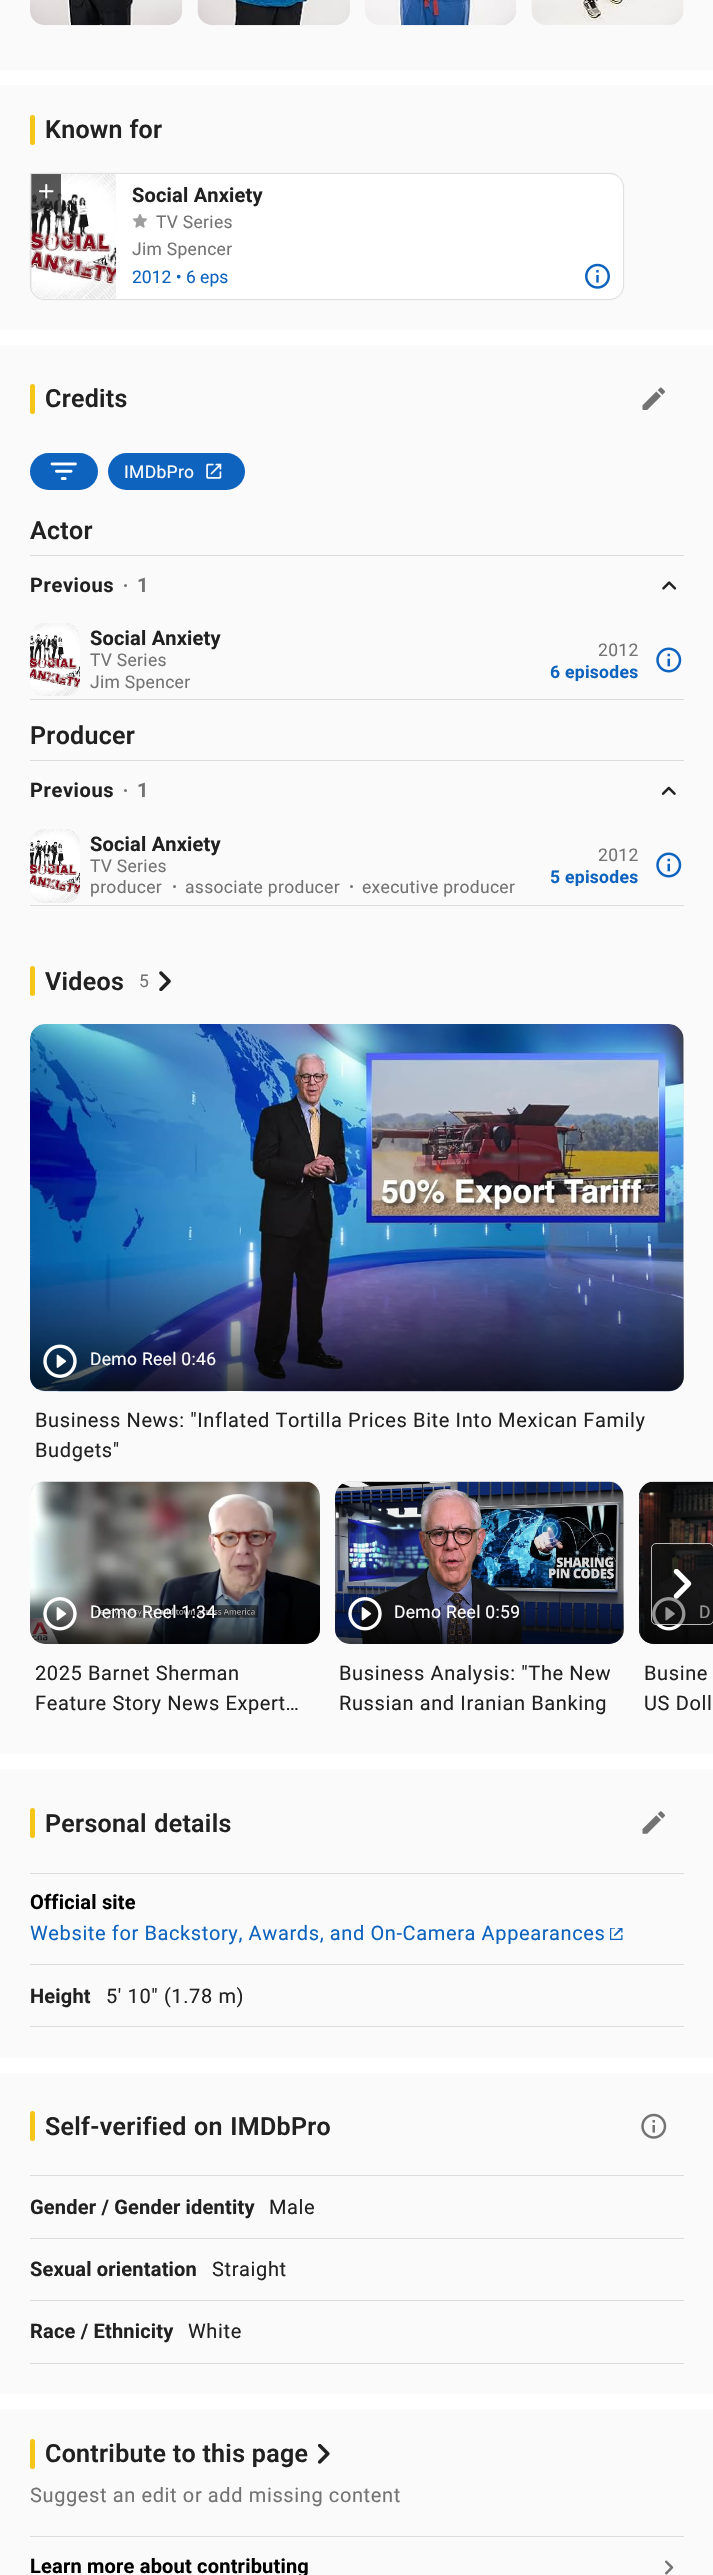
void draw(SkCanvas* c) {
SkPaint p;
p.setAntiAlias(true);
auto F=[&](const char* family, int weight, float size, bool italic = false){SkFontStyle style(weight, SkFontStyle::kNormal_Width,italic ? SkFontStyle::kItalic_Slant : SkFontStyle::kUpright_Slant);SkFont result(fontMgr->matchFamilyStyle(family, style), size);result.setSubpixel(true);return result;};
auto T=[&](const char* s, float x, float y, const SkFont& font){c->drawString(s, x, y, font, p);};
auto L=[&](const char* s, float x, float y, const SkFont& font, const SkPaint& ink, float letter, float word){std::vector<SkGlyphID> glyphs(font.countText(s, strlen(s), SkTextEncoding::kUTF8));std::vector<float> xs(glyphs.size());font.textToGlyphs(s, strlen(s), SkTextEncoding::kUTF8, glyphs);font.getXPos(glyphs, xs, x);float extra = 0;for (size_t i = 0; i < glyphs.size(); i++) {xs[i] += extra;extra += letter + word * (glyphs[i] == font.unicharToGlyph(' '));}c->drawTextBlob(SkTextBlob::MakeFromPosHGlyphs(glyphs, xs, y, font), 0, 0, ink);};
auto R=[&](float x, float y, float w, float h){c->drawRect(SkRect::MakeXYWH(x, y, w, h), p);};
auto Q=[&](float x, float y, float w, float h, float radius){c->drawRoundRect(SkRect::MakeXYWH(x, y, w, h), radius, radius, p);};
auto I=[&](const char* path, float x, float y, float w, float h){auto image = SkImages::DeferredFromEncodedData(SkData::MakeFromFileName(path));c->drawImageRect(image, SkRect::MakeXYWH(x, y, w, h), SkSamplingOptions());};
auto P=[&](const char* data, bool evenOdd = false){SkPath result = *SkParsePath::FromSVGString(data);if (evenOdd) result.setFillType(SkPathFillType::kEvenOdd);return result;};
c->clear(0xffffffff);
p.setColor(0xfffafafa);
R(0,0,713,70);
p.setColor(0xffffffff);
Q(30,-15,153,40,15);
I("1.png",30,0,153,26);
I("2.png",197,0,153,26);
I("3.png",365,0,151,26);
Q(531,-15,153,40,15);
I("4.png",531,0,153,25);
p.setColor(0xfffafafa);
R(0,85,713,245);
p.setColor(0xfff5c518);
Q(30,115,5,30,2.5);
auto f1 = F("Roboto",600,25);
p.setColor(0xff212121);
L("Known for",45,138,f1,p,.3,0);
p.setColor(0x1f000000);
p.setMaskFilter(SkMaskFilter::MakeBlur(kNormal_SkBlurStyle, .5));
c->drawRoundRect(SkRect::MakeXYWH(30,173,594,127),15,15,p);
p.setMaskFilter(nullptr);
p.setColor(0xffffffff);
c->drawPath(P("M30 173h579c8.5 0 15 6.5 15 15v97c0 8.5-6.5 15-15 15h-564c-8.5 0-15-6.5-15-15z"),p);
p.setStroke(true);
p.setStrokeWidth(1);
p.setColor(0x1f000000);
c->drawPath(P("M30.5 173.5h578.5c8 0 14.5 6.5 14.5 14.5v97c0 8-6.5 14.5-14.5 14.5h-564c-8 0-14.5-6.5-14.5-14.5z"),p);
p.setStroke(false);
p.setColor(0xffffffff);
c->drawPath(P("M31 174h85v125h-71c-7.5 0-14-6.5-14-14z"),p);
p.setColor(0x1a000000);
c->drawPath(P("M31 174h85v125h-71c-7.5 0-14-6.5-14-14z"),p);
I("5.png",31,174,86,125);
I("6.png",31,174,30,42);
I("7.png",39,184,15,15);
auto f2 = F("Roboto",700,20);
p.setColor(0xff212121);
L("Social Anxiety",132,202,f2,p,.2,0);
I("8.png",133,214,14,14);
auto f3 = F("Roboto",400,17.5);
p.setColor(0xff737373);
L("TV Series",156,228,f3,p,.3,0);
L("Jim Spencer",132,255,f3,p,.3,0);
p.setColor(0xff0e63be);
T("2012 • 6 eps",132,283,f3);
I("9.png",585,263,25,26);
p.setColor(0xfffafafa);
R(0,345,713,1409);
p.setColor(0xfff5c518);
Q(30,384,5,30,2.5);
p.setColor(0xff212121);
L("Credits",45,407,f1,p,.3,0);
I("10.png",642,387,23,23);
p.setColor(0xff0e63be);
Q(30,453,68,37,18.5);
I("11.png",50,462,27,18);
Q(108,453,137,37,18.5);
p.setColor(0xffffffff);
L("IMDbPro",124,478,f3,p,.3,0);
I("12.png",206,463,16,16);
p.setColor(0xff212121);
L("Actor",30,539,f1,p,.3,0);
p.setColor(0xffdcdcdc);
R(30,555,654,1);
p.setColor(0xff212121);
L("Previous",30,592,f2,p,.62,0);
p.setColor(0xff737373);
c->drawCircle(125.5,585.5,1.5,p);
L("1",137,592,f2,p,.62,0);
I("13.png",662,581,15,9);
I("14.png",30,623,50,73);
p.setColor(0xff212121);
L("Social Anxiety",90,645,f2,p,.2,0);
p.setColor(0xff737373);
L("TV Series",90,666,f3,p,.3,0);
c->save();
c->clipRect(SkRect::MakeXYWH(90,670,449,21));
L("Jim Spencer",90,688,f3,p,.3,0);
c->restore();
L("2012",598,656,f3,p,.3,0);
c->save();
c->clipRect(SkRect::MakeXYWH(550,660,89,21));
auto f4 = F("Roboto",700,17.5);
p.setColor(0xff0e63be);
L("6 episodes",550,678,f4,p,.3,0);
c->restore();
I("15.png",656,647,26,26);
p.setColor(0xffdcdcdc);
R(30,699,654,1);
p.setColor(0xff212121);
L("Producer",30,744,f1,p,.3,0);
p.setColor(0xffdcdcdc);
R(30,760,654,1);
p.setColor(0xff212121);
L("Previous",30,797,f2,p,.62,0);
p.setColor(0xff737373);
c->drawCircle(125.5,790.5,1.5,p);
L("1",137,797,f2,p,.62,0);
I("16.png",661,786,15,9);
p.setColor(0xffe5e5e5);
Q(30,829,50,74,15);
I("17.png",30,829,50,74);
p.setColor(0xff212121);
L("Social Anxiety",90,851,f2,p,.2,0);
p.setColor(0xff737373);
L("TV Series",90,872,f3,p,.3,0);
L("producer",90,893,f3,p,.3,0);
c->drawCircle(174.5,886.5,1.5,p);
L("associate producer",185,893,f3,p,.3,0);
c->drawCircle(351.5,886.5,1.5,p);
L("executive producer",362,893,f3,p,.3,0);
L("2012",598,861,f3,p,.3,0);
c->save();
c->clipRect(SkRect::MakeXYWH(550,865,89,21));
p.setColor(0xff0e63be);
L("5 episodes",550,883,f4,p,.3,0);
c->restore();
I("15.png",656,852,26,26);
p.setColor(0xffdcdcdc);
R(30,905,654,1);
p.setColor(0xfff5c518);
Q(30,966,5,30,2.5);
p.setColor(0xff212121);
L("Videos",45,990,f1,p,.3,0);
p.setColor(0xff737373);
L("5",139,987,f3,p,.3,0);
I("18.png",159,971,12,20);
p.setColor(0xffe6e6e6);
Q(30,1024,654,367,15);
I("19.png",30,1024,654,368);
{
const SkColor colors[] = {0x00000000,0x00000000,0x59000000,0xbf000000};
const float stops[] = {0,.65,.83,1};
const SkPoint ends[] = {{357,1024}, {357,1391}};
p.setShader(SkGradientShader::MakeLinear(ends, colors, stops, 4, SkTileMode::kClamp));
p.setAlpha(255);
}
Q(30,1024,654,367,15);
I("20.png",43,1344,34,34);
p.setShader(nullptr);
p.setColor(0xffffffff);
L("Demo Reel 0:46",90,1365,f3,p,.3,0);
auto f5 = F("Roboto",400,20);
p.setColor(0xff212121);
L("Business News: \"Inflated Tortilla Prices Bite Into Mexican Family",35,1427,f5,p,.62,0);
L("Budgets\"",35,1457,f5,p,.62,0);
p.setColor(0xffe5e5e5);
c->drawPath(P("M654 1481h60v163h-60c-8.5 0-15-6.5-15-15v-133c0-8.5 6.5-15 15-15z"),p);
I("26.png",639,1481,74,163);
{
const SkColor colors[] = {0x00000000,0x00000000,0x59000000,0xbf000000};
const float stops[] = {0,.65,.83,1};
const SkPoint ends[] = {{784,1481}, {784,1644}};
p.setShader(SkGradientShader::MakeLinear(ends, colors, stops, 4, SkTileMode::kClamp));
p.setAlpha(255);
}
c->drawPath(P("M654 1481h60v163h-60c-8.5 0-15-6.5-15-15v-133c0-8.5 6.5-15 15-15z"),p);
I("27.png",652,1597,34,34);
p.setShader(nullptr);
p.setColor(0xffffffff);
L("D",699,1618,f3,p,.3,0);
p.setColor(0x73121212);
Q(651,1543,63,82,5);
p.setStroke(true);
p.setColor(0xb3ffffff);
c->drawRoundRect(SkRect::MakeXYWH(651.5,1543.5,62,81),4.5,4.5,p);
I("21.png",673,1569,19,30);
p.setStroke(false);
p.setColor(0xffe5e5e5);
Q(30,1481,290,163,15);
I("22.png",30,1481,290,163);
{
const SkColor colors[] = {0x00000000,0x00000000,0x59000000,0xbf000000};
const float stops[] = {0,.65,.83,1};
const SkPoint ends[] = {{175,1481}, {175,1644}};
p.setShader(SkGradientShader::MakeLinear(ends, colors, stops, 4, SkTileMode::kClamp));
p.setAlpha(255);
}
Q(30,1481,290,163,15);
I("23.png",43,1597,34,34);
p.setShader(nullptr);
p.setColor(0xffffffff);
L("Demo Reel 1:34",90,1618,f3,p,.3,0);
p.setColor(0xff212121);
L("2025 Barnet Sherman",35,1680,f5,p,.62,0);
L("Feature Story News Expert…",35,1710,f5,p,.62,0);
p.setColor(0xffe5e5e5);
Q(335,1481,289,163,15);
I("24.png",335,1481,289,163);
{
const SkColor colors[] = {0x00000000,0x00000000,0x59000000,0xbf000000};
const float stops[] = {0,.65,.83,1};
const SkPoint ends[] = {{479,1481}, {479,1644}};
p.setShader(SkGradientShader::MakeLinear(ends, colors, stops, 4, SkTileMode::kClamp));
p.setAlpha(255);
}
Q(335,1481,289,163,15);
I("25.png",348,1597,34,34);
p.setShader(nullptr);
p.setColor(0xffffffff);
L("Demo Reel 0:59",394,1618,f3,p,.3,0);
p.setColor(0xff212121);
L("Business Analysis: \"The New",339,1680,f5,p,.62,0);
L("Russian and Iranian Banking",339,1710,f5,p,.62,0);
L("Busine",644,1680,f5,p,.62,0);
L("US Doll",644,1710,f5,p,.62,0);
p.setColor(0xfffafafa);
R(0,1769,713,289);
p.setColor(0xfff5c518);
Q(30,1808,5,30,2.5);
p.setColor(0xff212121);
L("Personal details",45,1832,f1,p,.3,1);
I("28.png",642,1811,23,23);
p.setColor(0xffdcdcdc);
R(30,1873,654,1);
p.setColor(0xff000000);
L("Official site",30,1909,f2,p,.2,0);
p.setColor(0xff0e63be);
L("Website for Backstory, Awards, and On-Camera Appearances",30,1940,f5,p,.62,0);
I("29.png",610,1928,13,12);
p.setColor(0xffdcdcdc);
R(30,1964,654,1);
R(30,2026,654,1);
p.setColor(0xff212121);
L("Height",30,2003,f2,p,.2,0);
L("5′ 10″ (1.78 m)",106,2003,f5,p,.62,0);
p.setColor(0xfffafafa);
R(0,2073,713,321);
p.setColor(0xfff5c518);
Q(30,2111,5,30,2.5);
p.setColor(0xff212121);
L("Self-verified on IMDbPro",45,2135,f1,p,.3,1);
I("30.png",641,2113,26,26);
p.setColor(0xffdcdcdc);
R(30,2175,654,1);
p.setColor(0xff212121);
L("Gender / Gender identity",30,2214,f2,p,.2,0);
L("Male",269,2214,f5,p,.62,0);
p.setColor(0xffdcdcdc);
R(30,2238,654,1);
p.setColor(0xff212121);
L("Sexual orientation",30,2276,f2,p,.2,0);
L("Straight",212,2276,f5,p,.62,0);
p.setColor(0xffdcdcdc);
R(30,2300,654,1);
R(30,2363,654,1);
p.setColor(0xff212121);
L("Race / Ethnicity",30,2338,f2,p,.2,0);
L("White",188,2338,f5,p,.62,0);
p.setColor(0xfffafafa);
R(0,2409,713,166);
p.setColor(0xfff5c518);
Q(30,2439,5,30,2.5);
p.setColor(0xff212121);
L("Contribute to this page",45,2462,f1,p,.3,0);
I("31.png",317,2444,13,20);
p.setColor(0xff737373);
L("Suggest an edit or add missing content",30,2502,f5,p,.62,0);
p.setColor(0xffdcdcdc);
R(30,2536,654,1);
p.setColor(0xff000000);
L("Learn more about contributing",30,2573,f2,p,.2,0);
I("32.png",665,2560,9,15);
}
